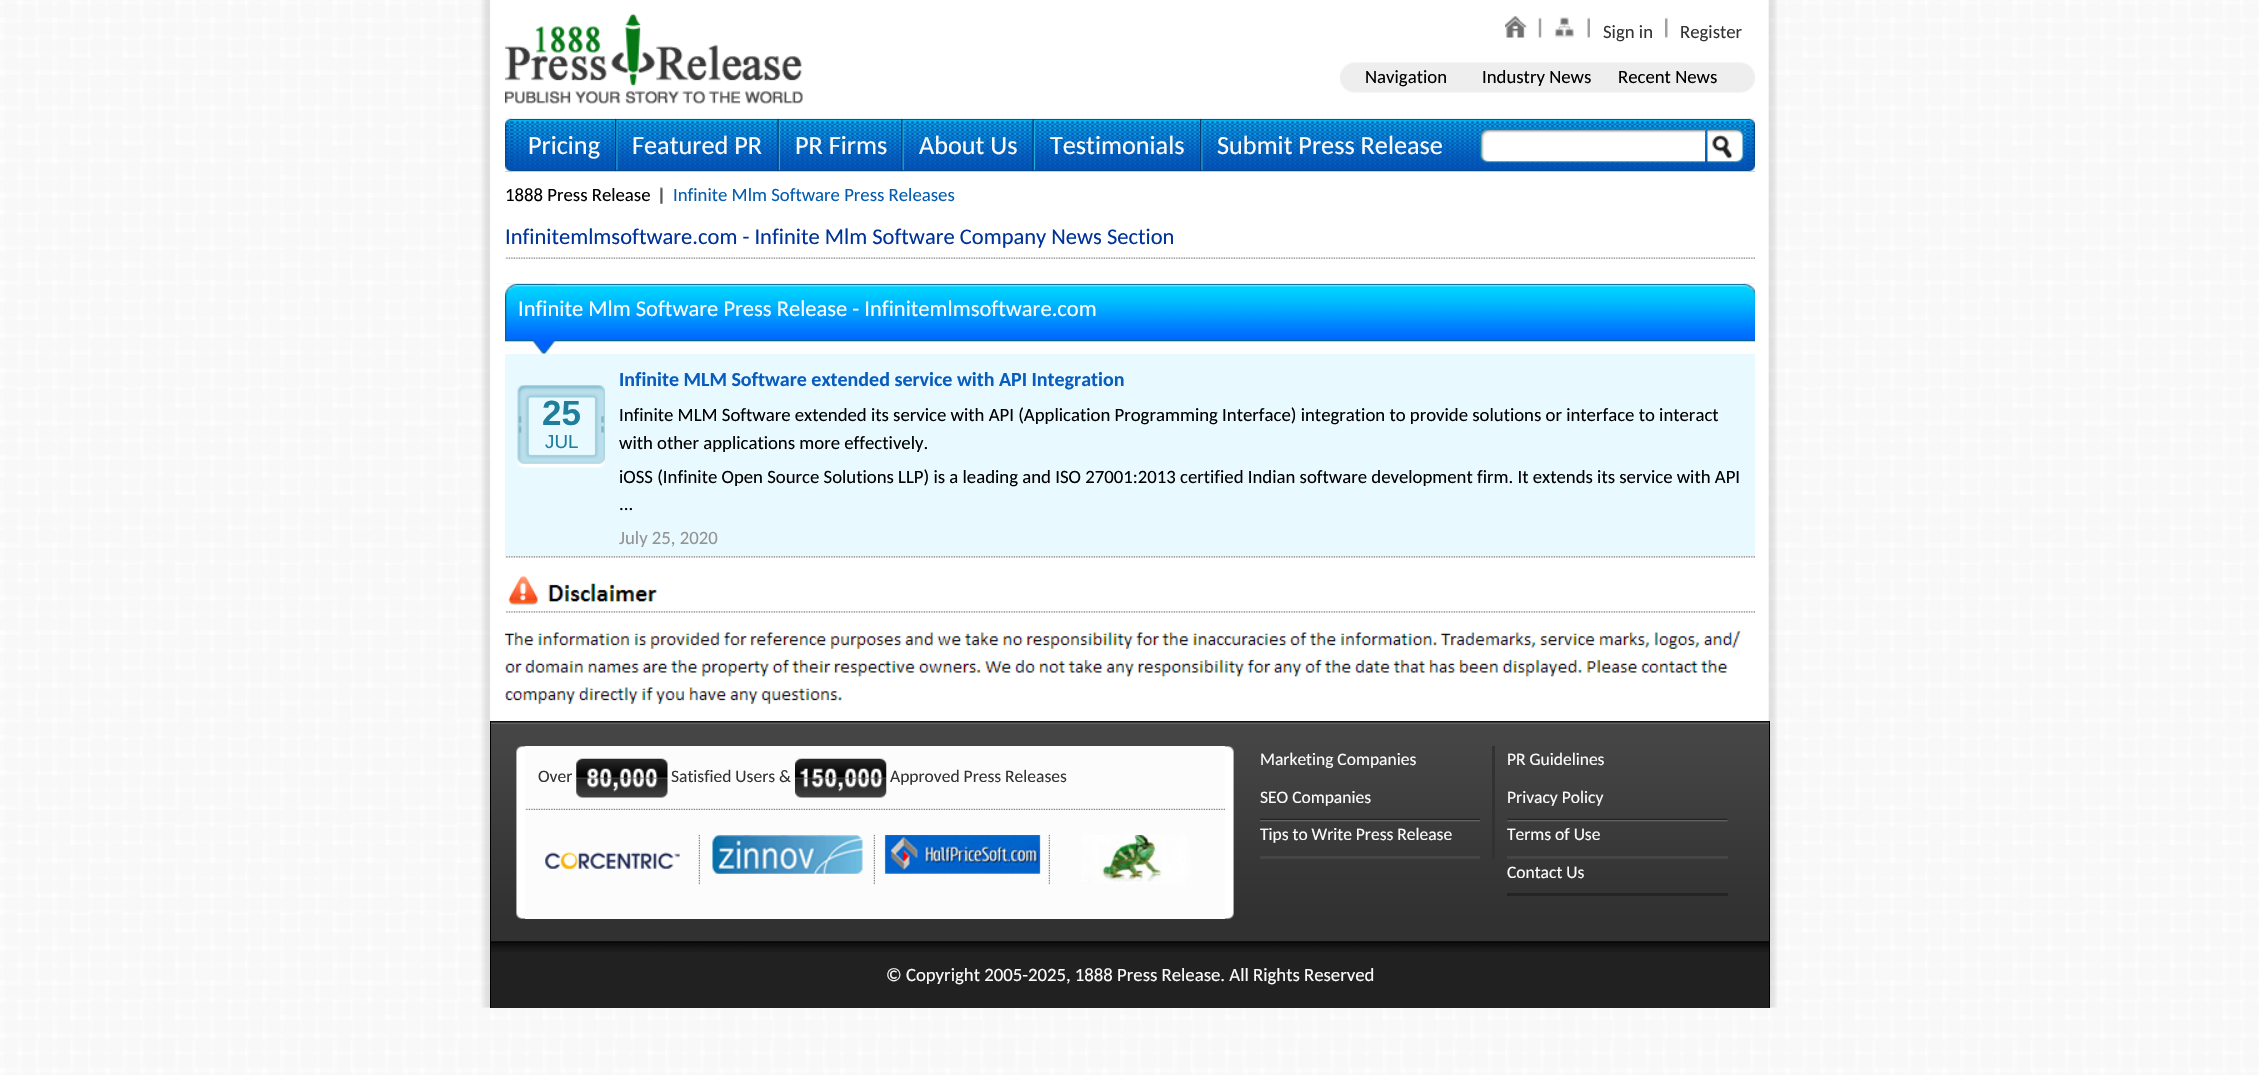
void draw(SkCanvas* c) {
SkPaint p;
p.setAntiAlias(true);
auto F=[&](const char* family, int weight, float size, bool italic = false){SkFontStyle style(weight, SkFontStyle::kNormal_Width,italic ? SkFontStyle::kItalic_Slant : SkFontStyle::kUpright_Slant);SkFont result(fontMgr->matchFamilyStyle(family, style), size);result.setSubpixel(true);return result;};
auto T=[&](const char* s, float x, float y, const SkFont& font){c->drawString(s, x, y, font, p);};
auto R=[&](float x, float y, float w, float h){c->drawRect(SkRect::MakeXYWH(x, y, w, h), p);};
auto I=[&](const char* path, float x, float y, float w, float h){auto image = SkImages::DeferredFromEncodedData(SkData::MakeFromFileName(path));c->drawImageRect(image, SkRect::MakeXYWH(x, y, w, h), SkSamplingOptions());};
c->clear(0xffffffff);
I("1.png",0,0,2259,1075);
I("2.png",481,0,1296,119);
I("3.png",505,13,298,91);
I("4.png",1505,16,22,22);
I("5.png",1538,17,4,21);
I("6.png",1555,17,19,21);
I("7.png",1587,17,3,21);
auto f1 = F("Carlito",400,18.75);
p.setColor(0xff343434);
T("Sign in",1603,38,f1);
I("8.png",1665,17,3,21);
T("Register",1680,38,f1);
I("9.png",1340,62,415,31);
p.setColor(0xff000000);
T("Navigation",1365,83,f1);
T("Industry News",1482,83,f1);
T("Recent News",1618,83,f1);
I("10.png",481,118,1296,66);
I("11.png",505,118,1250,54);
I("12.png",505,118,7,54);
auto f2 = F("Carlito",400,26.25);
p.setColor(0xfffcfcfc);
T("Pricing",528,154,f2);
I("13.png",615,118,3,54);
T("Featured PR",632,154,f2);
I("14.png",777,118,3,54);
T("PR Firms",795,154,f2);
I("15.png",901,118,3,54);
T("About Us",919,154,f2);
I("16.png",1032,118,3,54);
T("Testimonials",1050,154,f2);
I("13.png",1200,118,3,54);
T("Submit Press Release",1217,154,f2);
I("17.png",1480,128,225,35);
I("18.png",1707,128,37,35);
I("19.png",1748,118,7,54);
I("20.png",481,183,1296,101);
p.setColor(0xff000000);
T("1888 Press Release",505,201,f1);
I("21.png",660,187,3,17);
p.setColor(0xff035db1);
T("Infinite Mlm Software Press Releases",673,201,f1);
I("22.png",505,257,1250,2);
auto f3 = F("Carlito",400,22.5);
p.setColor(0xff003399);
T("Infinitemlmsoftware.com - Infinite Mlm Software Company News Section",505,244,f3);
I("23.png",481,283,1296,294);
I("24.png",505,283,1250,71);
I("25.png",505,283,52,71);
p.setColor(0xfffcfcfc);
T("Infinite Mlm Software Press Release - Infinitemlmsoftware.com",518,316,f3);
I("26.png",1743,283,12,48);
p.setColor(0xffe8f9ff);
R(505,354,1250,204);
I("27.png",505,556,1250,2);
I("28.png",517,385,88,83);
auto f4 = F("Liberation Sans",700,35);
p.setColor(0xff207e9d);
T("25",542,425,f4);
auto f5 = F("Liberation Sans",400,18.75);
T("JUL",545,448,f5);
auto f6 = F("Carlito",700,20);
p.setColor(0xff085dbd);
T("Infinite MLM Software extended service with API Integration",619,386,f6);
p.setColor(0xff000000);
T("Infinite MLM Software extended its service with API (Application Programming Interface) integration to provide solutions or interface to interact",619,421,f1);
T("with other applications more effectively.",619,449,f1);
T("iOSS (Infinite Open Source Solutions LLP) is a leading and ISO 27001:2013 certified Indian software development firm. It extends its service with API",619,483,f1);
T("...",619,510,f1);
p.setColor(0xff939393);
T("July 25, 2020",619,544,f1);
I("29.png",481,576,1296,146);
I("30.png",505,576,1250,128);
I("31.png",481,721,1296,287);
p.setColor(0xff222121);
R(491,721,1278,287);
I("32.png",491,721,1278,231);
p.setColor(0xff000000);
R(1769,721,1,287);
R(490,721,1,287);
I("33.png",516,746,9,173);
p.setColor(0xfffcfcfc);
R(525,746,700,173);
I("34.png",525,808,700,2);
auto f7 = F("Carlito",400,17.5);
p.setColor(0xff343434);
T("Over",538,782,f7);
I("35.png",576,758,92,40);
T("Satisfied Users &",671,782,f7);
I("36.png",795,758,92,40);
T("Approved Press Releases",890,782,f7);
I("37.png",698,835,2,50);
I("38.png",545,852,135,17);
I("37.png",873,835,2,50);
I("39.png",712,835,151,39);
I("37.png",1048,835,2,50);
I("40.png",884,835,157,39);
I("41.png",1082,835,109,49);
I("42.png",1225,746,9,173);
p.setColor(0xff333232);
R(1492,746,3,113);
p.setColor(0xfffcfcfc);
T("Marketing Companies",1260,765,f7);
I("43.png",1260,818,220,4);
T("SEO Companies",1260,803,f7);
p.setColor(0xff464545);
R(1260,856,220,3);
p.setColor(0xfffcfcfc);
T("Tips to Write Press Release",1260,840,f7);
T("PR Guidelines",1507,765,f7);
I("44.png",1507,818,221,4);
T("Privacy Policy",1507,803,f7);
p.setColor(0xff464545);
R(1507,856,221,3);
p.setColor(0xfffcfcfc);
T("Terms of Use",1507,840,f7);
p.setColor(0xff242424);
R(1507,893,221,3);
p.setColor(0xfffcfcfc);
T("Contact Us",1507,878,f7);
T("© Copyright 2005-2025, 1888 Press Release. All Rights Reserved",886,981,f1);
}
